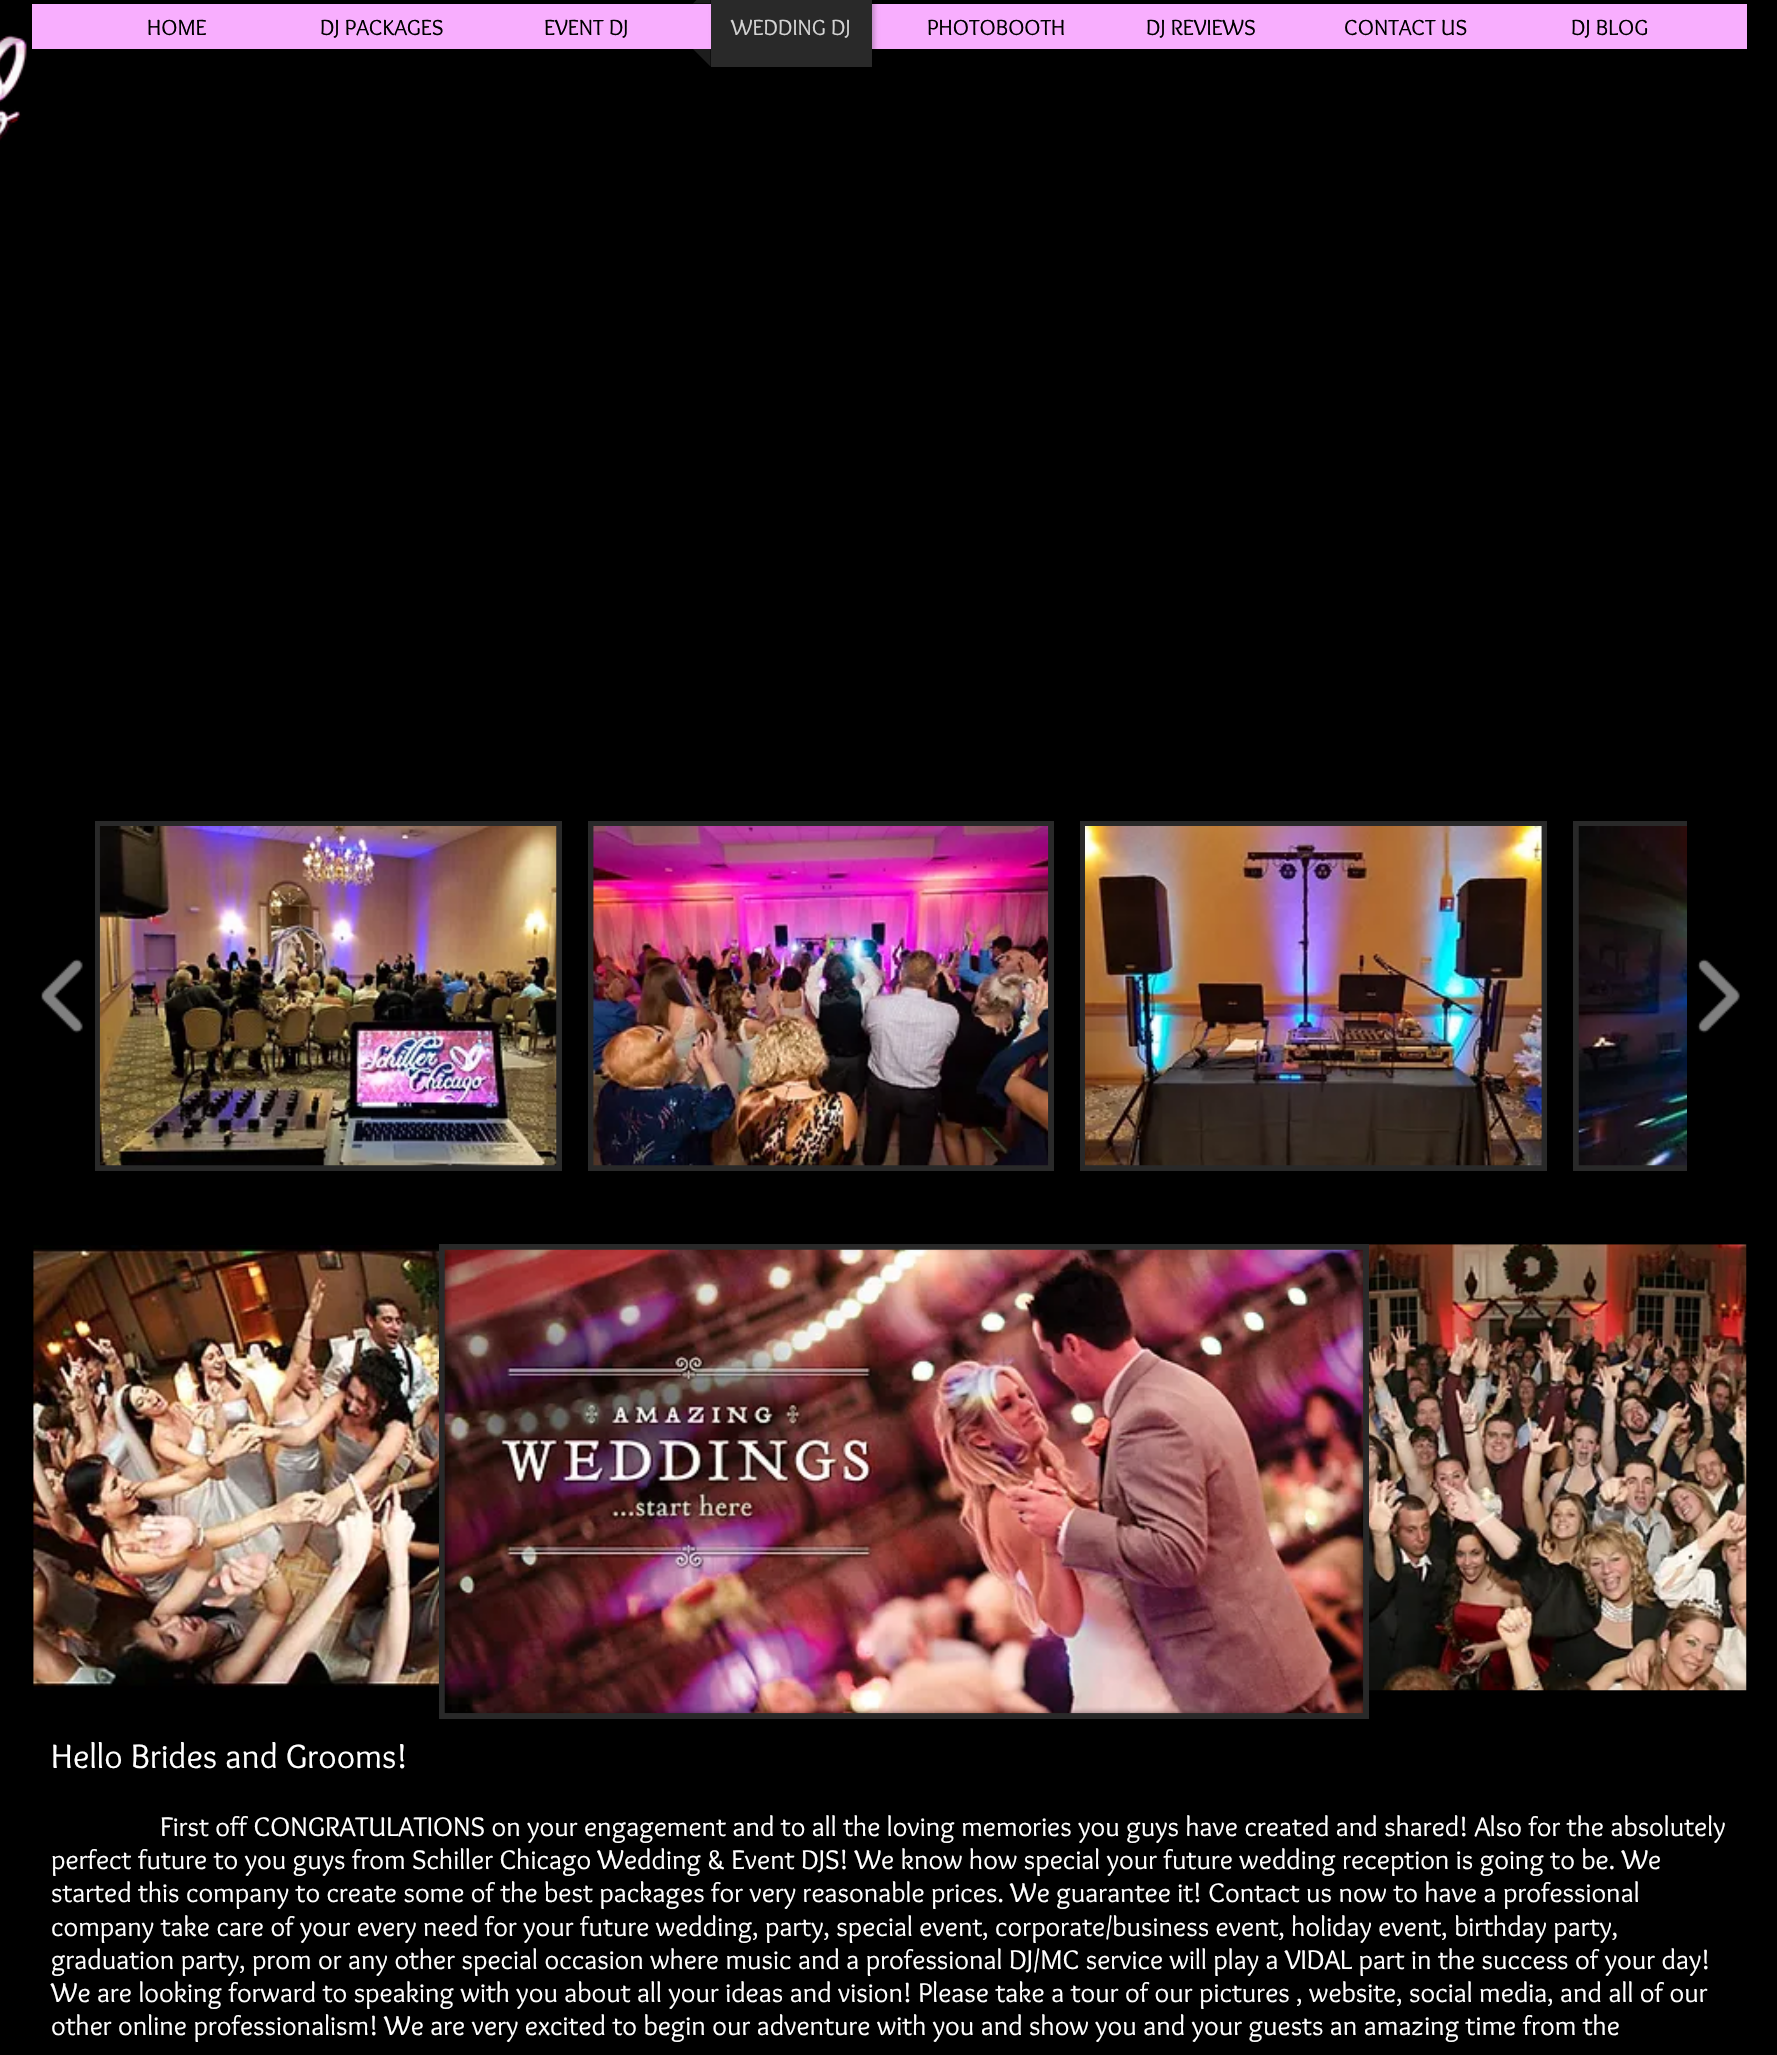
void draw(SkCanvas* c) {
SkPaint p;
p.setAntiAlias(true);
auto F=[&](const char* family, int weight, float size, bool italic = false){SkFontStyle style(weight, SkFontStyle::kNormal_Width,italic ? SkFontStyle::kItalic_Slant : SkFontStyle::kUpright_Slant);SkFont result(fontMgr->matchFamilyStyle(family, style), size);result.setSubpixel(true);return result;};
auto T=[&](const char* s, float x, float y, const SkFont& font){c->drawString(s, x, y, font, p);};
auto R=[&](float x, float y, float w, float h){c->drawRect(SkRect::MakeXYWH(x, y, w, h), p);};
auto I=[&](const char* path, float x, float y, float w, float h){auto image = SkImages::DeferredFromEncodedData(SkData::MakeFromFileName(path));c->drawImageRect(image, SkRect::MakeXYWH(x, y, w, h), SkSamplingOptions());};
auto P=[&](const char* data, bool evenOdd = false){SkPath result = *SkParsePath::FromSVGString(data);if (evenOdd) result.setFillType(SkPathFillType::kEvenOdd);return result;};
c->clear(0xff000000);
p.setColor(0xfff8aefe);
R(32,4,1715,45);
auto f1 = F("Overlock",400,22.75);
p.setColor(0xff000000);
T("HOME",147,35,f1);
T("DJ PACKAGES",320,35,f1);
T("EVENT DJ",544,35,f1);
p.setColor(0x33000000);
p.setMaskFilter(SkMaskFilter::MakeBlur(kNormal_SkBlurStyle, 2));
c->drawRect(SkRect::MakeXYWH(714,-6,161,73),p);
p.setMaskFilter(nullptr);
p.setColor(0xff1d1d1d);
c->drawPath(P("M710.5 3.5h-17.5l17.5-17.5z"),p);
p.setColor(0xff292929);
R(711,0,161,67);
p.setColor(0xff1d1d1d);
c->drawPath(P("M693 49h17.5v17.5z"),p);
p.setColor(0xffd3d3d3);
T("WEDDING DJ",731,35,f1);
p.setColor(0xff000000);
T("PHOTOBOOTH",927,35,f1);
T("DJ REVIEWS",1146,35,f1);
T("CONTACT US",1344,35,f1);
T("DJ BLOG",1571,35,f1);
I("1.png",0,35,27,106);
I("2.png",41,959,42,74);
p.setColor(0xff292929);
R(95,821,467,350);
I("3.png",99,826,458,340);
R(588,821,466,350);
I("4.png",593,826,456,340);
R(1080,821,467,350);
I("5.png",1085,826,457,340);
R(1573,821,114,350);
I("6.png",1578,826,109,340);
I("7.png",1697,958,43,75);
I("8.png",33,1245,406,445);
R(439,1244,930,475);
I("9.png",444,1249,920,465);
I("10.png",1369,1244,378,447);
auto f2 = F("Overlock",400,35);
p.setColor(0xffffffff);
T("Hello Brides and Grooms!",51,1768,f2);
auto f3 = F("Overlock",400,28);
T("First off CONGRATULATIONS on your engagement and to all the loving memories you guys have created and shared! Also for the absolutely",160,1836,f3);
T("perfect future to you guys from Schiller Chicago Wedding & Event DJS! We know how special your future wedding reception is going to be. We",51,1869,f3);
T("started this company to create some of the best packages for very reasonable prices. We guarantee it! Contact us now to have a professional",51,1902,f3);
T("company take care of your every need for your future wedding, party, special event, corporate/business event, holiday event, birthday party,",51,1936,f3);
T("graduation party, prom or any other special occasion where music and a professional DJ/MC service will play a VIDAL part in the success of your day!",51,1969,f3);
T("We are looking forward to speaking with you about all your ideas and vision! Please take a tour of our pictures , website, social media, and all of our",51,2002,f3);
T("other online professionalism! We are very excited to begin our adventure with you and show you and your guests an amazing time from the",51,2035,f3);
}
